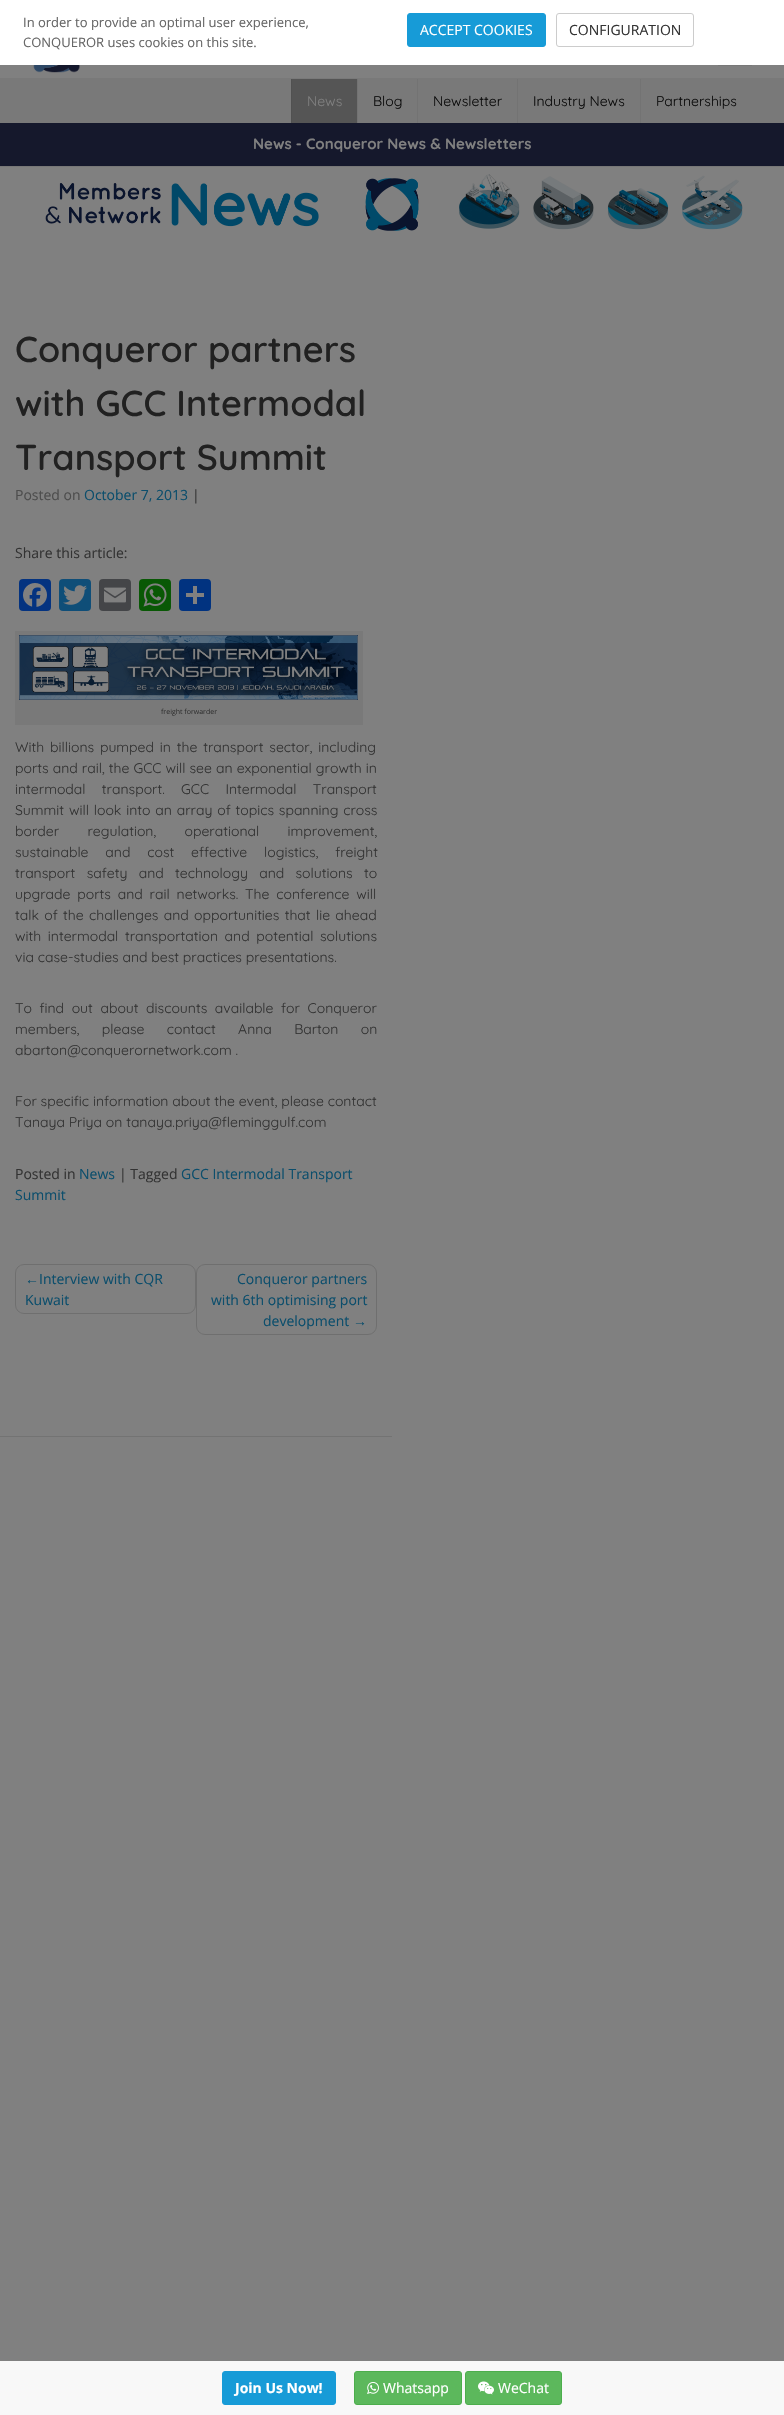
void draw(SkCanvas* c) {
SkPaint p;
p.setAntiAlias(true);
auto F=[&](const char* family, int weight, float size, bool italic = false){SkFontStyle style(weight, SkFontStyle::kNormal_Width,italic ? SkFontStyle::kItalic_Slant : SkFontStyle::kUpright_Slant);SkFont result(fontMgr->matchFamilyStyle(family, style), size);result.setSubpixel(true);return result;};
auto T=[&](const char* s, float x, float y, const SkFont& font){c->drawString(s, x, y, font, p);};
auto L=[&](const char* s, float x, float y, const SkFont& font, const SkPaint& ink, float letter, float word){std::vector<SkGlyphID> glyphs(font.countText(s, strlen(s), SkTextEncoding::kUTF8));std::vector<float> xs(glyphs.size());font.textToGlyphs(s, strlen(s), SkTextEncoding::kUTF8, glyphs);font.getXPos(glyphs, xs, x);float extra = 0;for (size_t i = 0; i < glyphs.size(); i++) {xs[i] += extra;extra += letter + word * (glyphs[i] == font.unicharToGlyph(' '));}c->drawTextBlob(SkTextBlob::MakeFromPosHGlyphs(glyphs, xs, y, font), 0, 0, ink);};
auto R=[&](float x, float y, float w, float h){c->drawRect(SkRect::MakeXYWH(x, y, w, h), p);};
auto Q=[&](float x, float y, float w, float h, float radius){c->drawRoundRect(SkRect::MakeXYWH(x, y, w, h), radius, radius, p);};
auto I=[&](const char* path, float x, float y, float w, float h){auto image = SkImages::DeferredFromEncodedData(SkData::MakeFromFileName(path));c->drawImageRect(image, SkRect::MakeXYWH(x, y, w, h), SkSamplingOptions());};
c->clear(0xff808080);
p.setColor(0xffffffff);
R(0,0,784,65);
auto f1 = F("Open Sans",400,13);
p.setColor(0xff666666);
T("In order to provide an optimal user experience,",23,27,f1);
T("CONQUEROR uses cookies on this site.",23,47,f1);
p.setColor(0xff179bd7);
c->drawRoundRect(SkRect::MakeXYWH(407.5,13.5,138,33),2.5,2.5,p);
p.setStroke(true);
p.setStrokeWidth(1);
c->drawRoundRect(SkRect::MakeXYWH(407.5,13.5,138,33),2.5,2.5,p);
auto f2 = F("Open Sans",400,14);
p.setStroke(false);
p.setColor(0xffffffff);
T("ACCEPT COOKIES",420,35,f2);
p.setStroke(true);
p.setColor(0xffcccccc);
c->drawRoundRect(SkRect::MakeXYWH(556.5,13.5,137,33),2.5,2.5,p);
p.setStroke(false);
p.setColor(0xff333333);
T("CONFIGURATION",569,35,f2);
I("1.png",33,65,47,8);
p.setColor(0xff787878);
R(718,65,34,1);
p.setColor(0xff797979);
R(0,78,784,45);
p.setColor(0xff555555);
R(292,79,65,44);
p.setColor(0xff515151);
R(291,79,1,44);
auto f3 = F("Quicksand",400,14);
p.setColor(0xff808080);
T("News",307,106,f3);
p.setColor(0xff737373);
R(357,79,1,44);
p.setColor(0xff0b0b0b);
T("Blog",373,106,f3);
p.setColor(0xff737373);
R(417,79,1,44);
p.setColor(0xff0b0b0b);
T("Newsletter",433,106,f3);
p.setColor(0xff737373);
R(517,79,1,44);
p.setColor(0xff0b0b0b);
T("Industry News",533,106,f3);
p.setColor(0xff737373);
R(640,79,1,44);
p.setColor(0xff0b0b0b);
T("Partnerships",656,106,f3);
p.setColor(0xff15182c);
R(0,123,784,43);
p.setColor(0xff777777);
R(0,166,784,1);
auto f4 = F("Quicksand",700,15);
p.setColor(0xff808080);
T("News - Conqueror News & Newsletters",253,149,f4);
I("2.png",45,174,698,57);
p.setColor(0xff737373);
R(0,1436,392,1);
auto f5 = F("Quicksand",600,36);
p.setColor(0xff212121);
T("Conqueror partners",15,362,f5);
T("with GCC Intermodal",15,416,f5);
T("Transport Summit",15,470,f5);
p.setColor(0xff4d4d4d);
T("Posted on",15,500,f2);
p.setColor(0xff0c4e6c);
T("October 7, 2013",84,500,f2);
p.setColor(0xff333333);
T("|",192,500,f2);
T("Share this article:",15,558,f2);
p.setColor(0xff043380);
Q(19,579,32,32,4);
I("3.png",23,583,24,24);
p.setColor(0xff0f4e78);
Q(59,579,32,32,4);
I("4.png",63,585,24,20);
p.setColor(0xff444548);
Q(99,579,32,32,4);
I("5.png",104,587,22,16);
p.setColor(0xff095805);
Q(139,579,32,32,4);
I("6.png",143,583,24,24);
p.setColor(0xff013380);
Q(179,579,32,32,4);
p.setColor(0xff808080);
R(193,586,4,18);
R(186,593,18,4);
p.setColor(0xff797979);
R(15,631,348,94);
I("7.png",19,635,339,65);
auto f6 = F("Open Sans",400,7);
p.setColor(0xff333333);
T("freight forwarder",161,714,f6);
L("With billions pumped in the transport sector, including",15,752,f3,p,0,2);
L("ports and rail, the GCC will see an exponential growth in",15,773,f3,p,0,.25);
L("intermodal transport. GCC Intermodal Transport",15,794,f3,p,0,12.5);
L("Summit will look into an array of topics spanning cross",15,815,f3,p,0,1);
L("border regulation, operational improvement,",15,836,f3,p,0,24.5);
L("sustainable and cost effective logistics, freight",15,857,f3,p,0,13);
L("transport safety and technology and solutions to",15,878,f3,p,0,7.5);
L("upgrade ports and rail networks. The conference will",15,899,f3,p,0,3);
L("talk of the challenges and opportunities that lie ahead",15,920,f3,p,0,1.5);
L("with intermodal transportation and potential solutions",15,941,f3,p,0,2.75);
T("via case-studies and best practices presentations.",15,962,f3);
L("To find out about discounts available for Conqueror",15,1013,f3,p,0,3.75);
L("members, please contact Anna Barton on",15,1034,f3,p,0,18.5);
T("abarton@conquerornetwork.com .",15,1055,f3);
T("For specific information about the event, please contact",15,1106,f3);
T("Tanaya Priya on tanaya.priya@fleminggulf.com",15,1127,f3);
T("Posted in",15,1179,f2);
p.setColor(0xff0c4e6c);
T("News",79,1179,f2);
p.setColor(0xff333333);
T("| Tagged",119,1179,f2);
p.setColor(0xff0c4e6c);
T("GCC Intermodal Transport",181,1179,f2);
T("Summit",15,1200,f2);
p.setStroke(true);
p.setColor(0xff6f6f6f);
c->drawRoundRect(SkRect::MakeXYWH(15.5,1264.5,180,49),8.5,8.5,p);
auto f7 = F("Liberation Sans",400,14);
p.setStroke(false);
p.setColor(0xff0c4e6c);
T("←",25,1284,f7);
T("Interview with CQR",39,1284,f2);
T("Kuwait",25,1305,f2);
p.setStroke(true);
p.setColor(0xff6f6f6f);
c->drawRoundRect(SkRect::MakeXYWH(196.5,1264.5,180,70),8.5,8.5,p);
p.setStroke(false);
p.setColor(0xff0c4e6c);
T("Conqueror partners",237,1284,f2);
T("with 6th optimising port",211,1305,f2);
T("development",263,1326,f2);
T("→",353,1326,f7);
p.setColor(0xfff8f8f8);
R(0,2361,784,54);
p.setColor(0xff179bd7);
c->drawRoundRect(SkRect::MakeXYWH(222.5,2371.5,113,33),2.5,2.5,p);
p.setStroke(true);
c->drawRoundRect(SkRect::MakeXYWH(222.5,2371.5,113,33),2.5,2.5,p);
auto f8 = F("Open Sans",700,14);
p.setStroke(false);
p.setColor(0xffffffff);
T("Join Us Now!",235,2393,f8);
p.setColor(0xff5cb85c);
c->drawRoundRect(SkRect::MakeXYWH(354.5,2371.5,107,33),2.5,2.5,p);
p.setStroke(true);
p.setColor(0xff4cae4c);
c->drawRoundRect(SkRect::MakeXYWH(354.5,2371.5,107,33),2.5,2.5,p);
I("8.png",367,2382,12,12);
p.setStroke(false);
p.setColor(0xffffffff);
T("Whatsapp",383,2393,f2);
p.setColor(0xff5cb85c);
c->drawRoundRect(SkRect::MakeXYWH(465.5,2371.5,96,33),2.5,2.5,p);
p.setStroke(true);
p.setColor(0xff4cae4c);
c->drawRoundRect(SkRect::MakeXYWH(465.5,2371.5,96,33),2.5,2.5,p);
I("9.png",478,2381,16,14);
p.setStroke(false);
p.setColor(0xffffffff);
T("WeChat",498,2393,f2);
}
